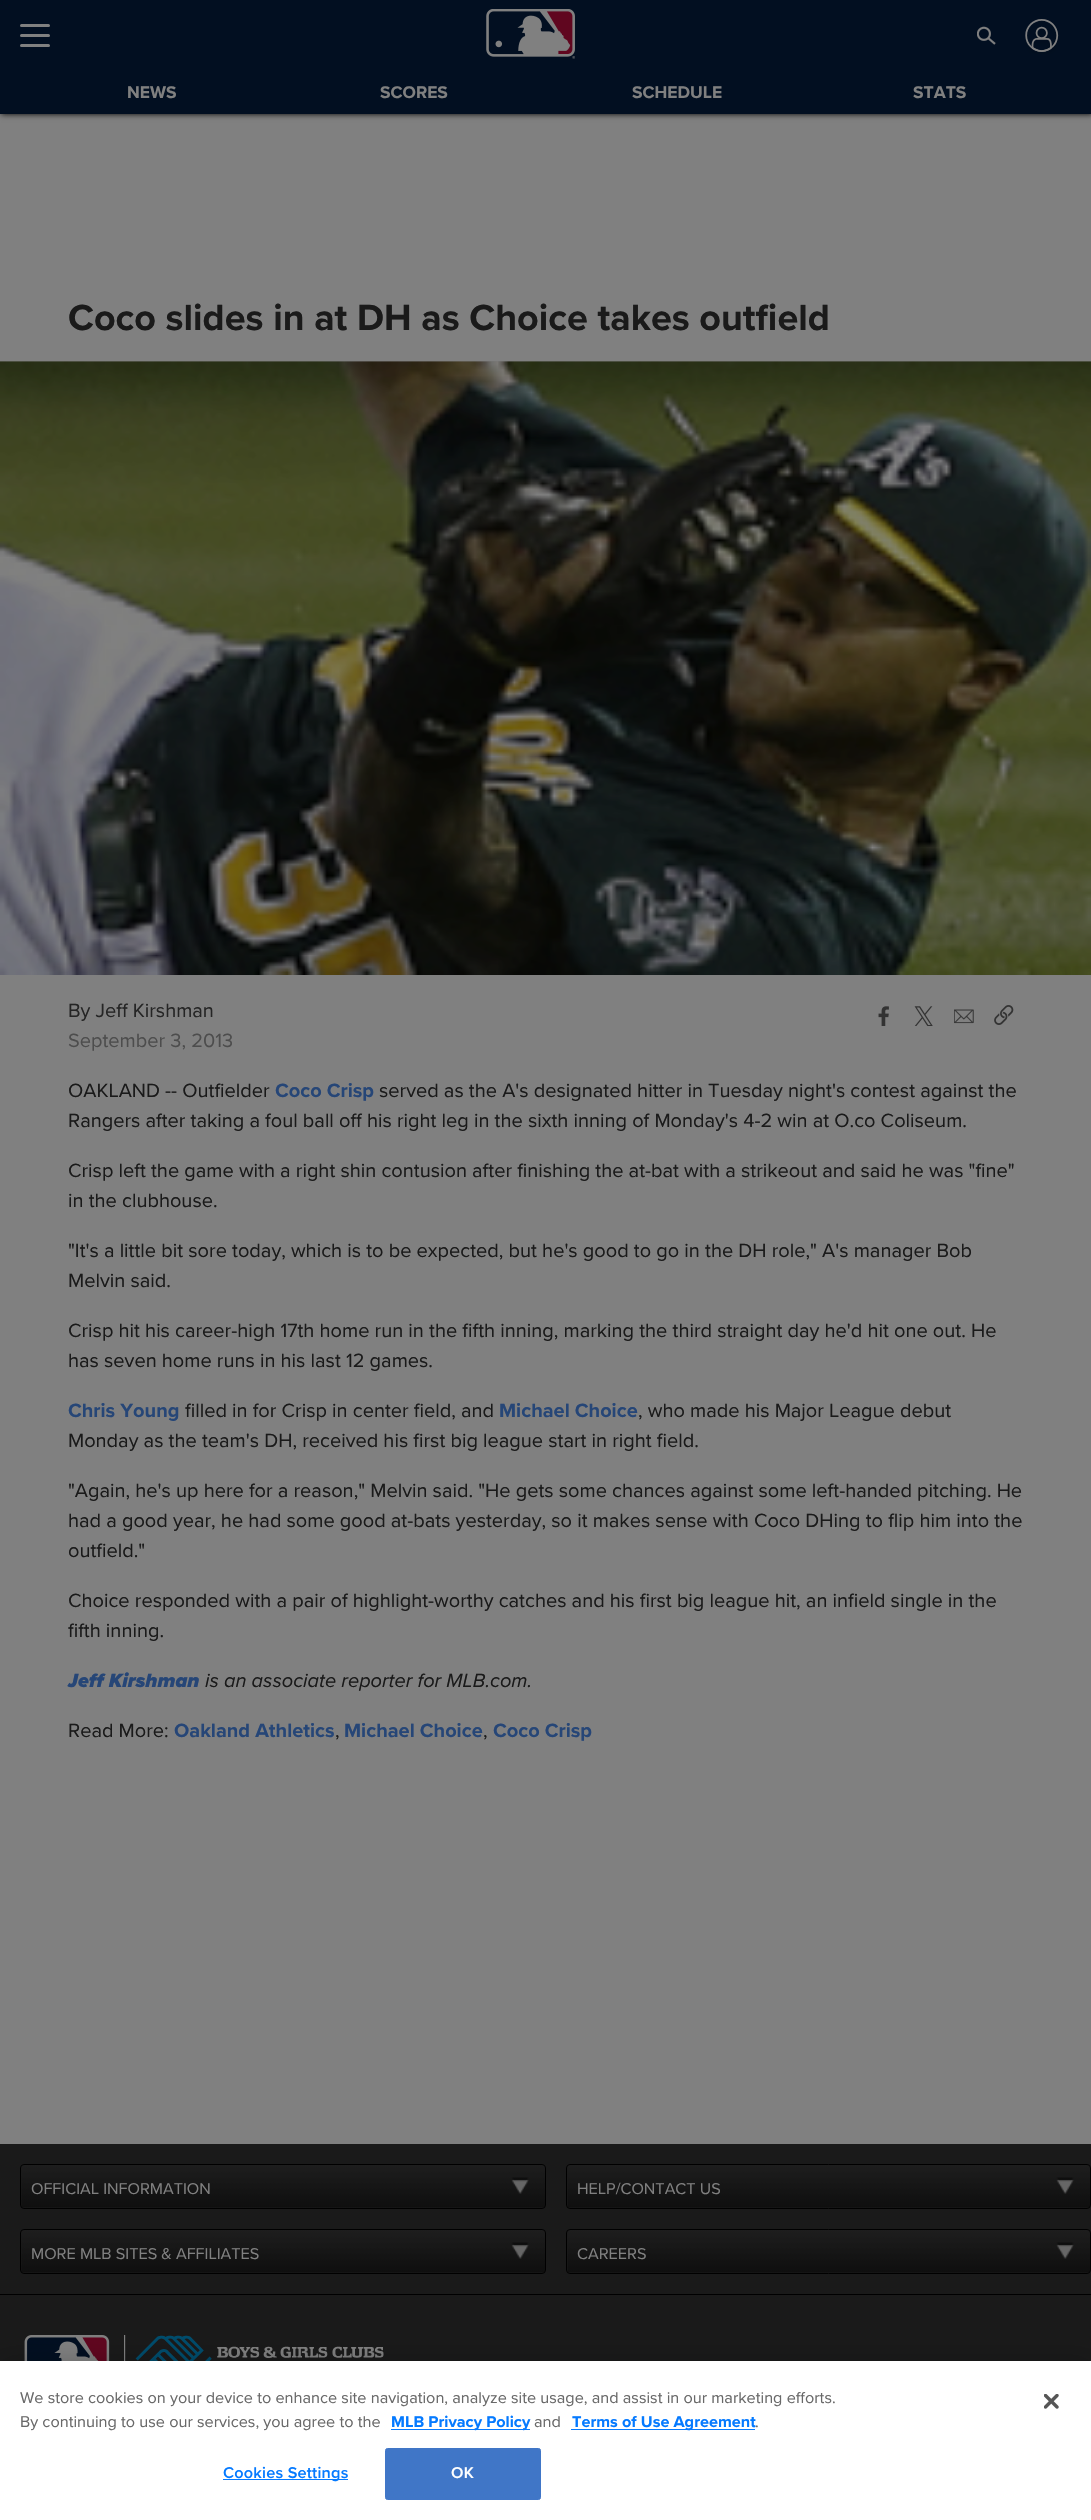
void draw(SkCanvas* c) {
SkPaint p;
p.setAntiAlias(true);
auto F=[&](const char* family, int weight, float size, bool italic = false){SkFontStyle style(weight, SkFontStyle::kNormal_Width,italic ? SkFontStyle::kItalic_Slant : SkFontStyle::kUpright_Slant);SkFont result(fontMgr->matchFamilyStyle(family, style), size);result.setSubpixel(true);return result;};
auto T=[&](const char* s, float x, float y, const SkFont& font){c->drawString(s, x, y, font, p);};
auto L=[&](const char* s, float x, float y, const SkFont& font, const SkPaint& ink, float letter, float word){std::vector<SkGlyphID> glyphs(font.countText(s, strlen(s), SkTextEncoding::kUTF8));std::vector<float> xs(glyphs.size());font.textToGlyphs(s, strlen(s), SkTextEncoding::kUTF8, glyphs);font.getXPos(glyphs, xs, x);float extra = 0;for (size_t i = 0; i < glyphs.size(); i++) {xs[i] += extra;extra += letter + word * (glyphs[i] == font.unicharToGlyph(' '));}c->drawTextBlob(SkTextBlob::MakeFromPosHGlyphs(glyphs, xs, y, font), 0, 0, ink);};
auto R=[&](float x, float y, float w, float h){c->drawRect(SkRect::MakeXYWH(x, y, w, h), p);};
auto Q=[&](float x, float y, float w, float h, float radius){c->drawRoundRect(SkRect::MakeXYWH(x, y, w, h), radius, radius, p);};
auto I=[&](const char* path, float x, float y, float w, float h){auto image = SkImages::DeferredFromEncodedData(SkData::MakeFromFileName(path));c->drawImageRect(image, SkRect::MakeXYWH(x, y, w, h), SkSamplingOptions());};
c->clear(0xff808080);
p.setColor(0xff000000);
p.setMaskFilter(SkMaskFilter::MakeBlur(kNormal_SkBlurStyle, 3));
c->drawRect(SkRect::MakeXYWH(1,0,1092,114),p);
p.setMaskFilter(nullptr);
p.setColor(0xff020f21);
R(0,0,1091,114);
p.setColor(0xff808080);
Q(20,24,30,3,1.5);
Q(20,34,30,3,1.5);
Q(20,44,30,3,1.5);
I("1.png",486,9,89,50);
I("2.png",977,26,19,19);
I("3.png",1025,19,34,35);
auto f1 = F("Proxima Nova",700,17.5);
T("NEWS",127,98,f1);
T("SCORES",380,98,f1);
T("SCHEDULE",632,98,f1);
T("STATS",913,98,f1);
auto f2 = F("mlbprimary",700,37.7);
p.setColor(0xff1a1a1a);
T("Coco slides in at DH as Choice takes outfield",68,330,f2);
p.setColor(0xff767676);
R(0,361,1091,1);
I("4.png",0,361,1091,614);
auto f3 = F("mlbprimary",400,20);
p.setColor(0xff252525);
T("By Jeff Kirshman",68,1017,f3);
p.setColor(0xff4d4d4d);
T("September 3, 2013",68,1047,f3);
I("5.png",878,1006,11,20);
I("6.png",914,1006,19,20);
I("7.png",954,1009,20,15);
I("8.png",994,1005,20,20);
p.setColor(0xff1a1a1a);
T("OAKLAND -- Outfielder",68,1097,f3);
auto f4 = F("mlbprimary",700,20);
p.setColor(0xff264677);
T("Coco Crisp",275,1097,f4);
p.setColor(0xff1a1a1a);
T("served as the A's designated hitter in Tuesday night's contest against the",379,1097,f3);
T("Rangers after taking a foul ball off his right leg in the sixth inning of Monday's 4-2 win at O.co Coliseum.",68,1127,f3);
T("Crisp left the game with a right shin contusion after finishing the at-bat with a strikeout and said he was \"fine\"",68,1177,f3);
T("in the clubhouse.",68,1207,f3);
T("\"It's a little bit sore today, which is to be expected, but he's good to go in the DH role,\" A's manager Bob",68,1257,f3);
T("Melvin said.",68,1287,f3);
T("Crisp hit his career-high 17th home run in the fifth inning, marking the third straight day he'd hit one out. He",68,1337,f3);
T("has seven home runs in his last 12 games.",68,1367,f3);
p.setColor(0xff264677);
T("Chris Young",68,1417,f4);
p.setColor(0xff1a1a1a);
T("filled in for Crisp in center field, and",185,1417,f3);
p.setColor(0xff264677);
T("Michael Choice",499,1417,f4);
p.setColor(0xff1a1a1a);
T(", who made his Major League debut",638,1417,f3);
T("Monday as the team's DH, received his first big league start in right field.",68,1447,f3);
T("\"Again, he's up here for a reason,\" Melvin said. \"He gets some chances against some left-handed pitching. He",68,1497,f3);
T("had a good year, he had some good at-bats yesterday, so it makes sense with Coco DHing to flip him into the",68,1527,f3);
T("outfield.\"",68,1557,f3);
T("Choice responded with a pair of highlight-worthy catches and his first big league hit, an infield single in the",68,1607,f3);
T("fifth inning.",68,1637,f3);
auto f5 = F("Proxima Nova",900,20,true);
p.setColor(0xff264677);
T("Jeff Kirshman",68,1687,f5);
auto f6 = F("mlbprimary",400,20,true);
p.setColor(0xff1a1a1a);
T("is an associate reporter for MLB.com.",205,1687,f6);
T("Read More:",68,1737,f3);
p.setColor(0xff264677);
T("Oakland Athletics",174,1737,f4);
p.setColor(0xff1a1a1a);
T(",",335,1737,f3);
p.setColor(0xff264677);
T("Michael Choice",344,1737,f4);
p.setColor(0xff1a1a1a);
T(",",483,1737,f3);
p.setColor(0xff264677);
T("Coco Crisp",493,1737,f4);
p.setColor(0xff1a1a1a);
R(0,2144,1091,217);
I("9.png",21,2165,524,43);
p.setStroke(true);
p.setStrokeWidth(1);
p.setColor(0xff000000);
c->drawRoundRect(SkRect::MakeXYWH(20.5,2164.5,525,44),3.5,3.5,p);
auto f7 = F("Proxima Nova",400,16.25);
p.setStroke(false);
p.setColor(0xff808080);
T("OFFICIAL INFORMATION",31,2194,f7);
I("10.png",567,2165,523,43);
p.setStroke(true);
p.setColor(0xff000000);
c->drawRoundRect(SkRect::MakeXYWH(566.5,2164.5,524,44),3.5,3.5,p);
p.setStroke(false);
p.setColor(0xff808080);
T("HELP/CONTACT US",577,2194,f7);
I("9.png",21,2230,524,43);
p.setStroke(true);
p.setColor(0xff000000);
c->drawRoundRect(SkRect::MakeXYWH(20.5,2229.5,525,44),3.5,3.5,p);
p.setStroke(false);
p.setColor(0xff808080);
T("MORE MLB SITES & AFFILIATES",31,2259,f7);
I("10.png",567,2230,523,43);
p.setStroke(true);
p.setColor(0xff000000);
c->drawRoundRect(SkRect::MakeXYWH(566.5,2229.5,524,44),3.5,3.5,p);
p.setStroke(false);
p.setColor(0xff808080);
T("CAREERS",577,2259,f7);
p.setColor(0xff000000);
R(0,2294,1091,1);
I("11.png",24,2335,86,26);
I("12.png",124,2335,260,26);
p.setColor(0x33000000);
p.setMaskFilter(SkMaskFilter::MakeBlur(kNormal_SkBlurStyle, 11));
c->drawRect(SkRect::MakeXYWH(0,2361,1091,159),p);
p.setMaskFilter(nullptr);
p.setColor(0xffffffff);
R(0,2361,1091,159);
auto f8 = F("mlbprimary",400,16.25);
p.setColor(0xff696969);
T("We store cookies on your device to enhance site navigation, analyze site usage, and assist in our marketing efforts.",20,2403,f8);
T("By continuing to use our services, you agree to the",20,2427,f8);
p.setColor(0xff057aff);
R(391,2429,139,1);
auto f9 = F("mlbprimary",700,16.25);
T("MLB Privacy Policy",391,2427,f9);
p.setColor(0xff696969);
T("and",534,2427,f8);
p.setColor(0xff057aff);
R(571,2429,184,1);
T("Terms of Use Agreement",572,2427,f9);
p.setColor(0xff696969);
T(".",755,2427,f8);
p.setColor(0xff057aff);
R(223,2479,125,1);
auto f10 = F("Proxima Nova",600,16.25);
L("Cookies Settings",223,2478,f10,p,.2,0);
p.setColor(0xff4076c7);
c->drawRoundRect(SkRect::MakeXYWH(385.5,2448.5,155,51),2,2,p);
p.setStroke(true);
c->drawRoundRect(SkRect::MakeXYWH(385.5,2448.5,155,51),2,2,p);
p.setStroke(false);
p.setColor(0xffffffff);
L("OK",451,2478,f10,p,.2,0);
I("13.png",1044,2394,15,15);
}
